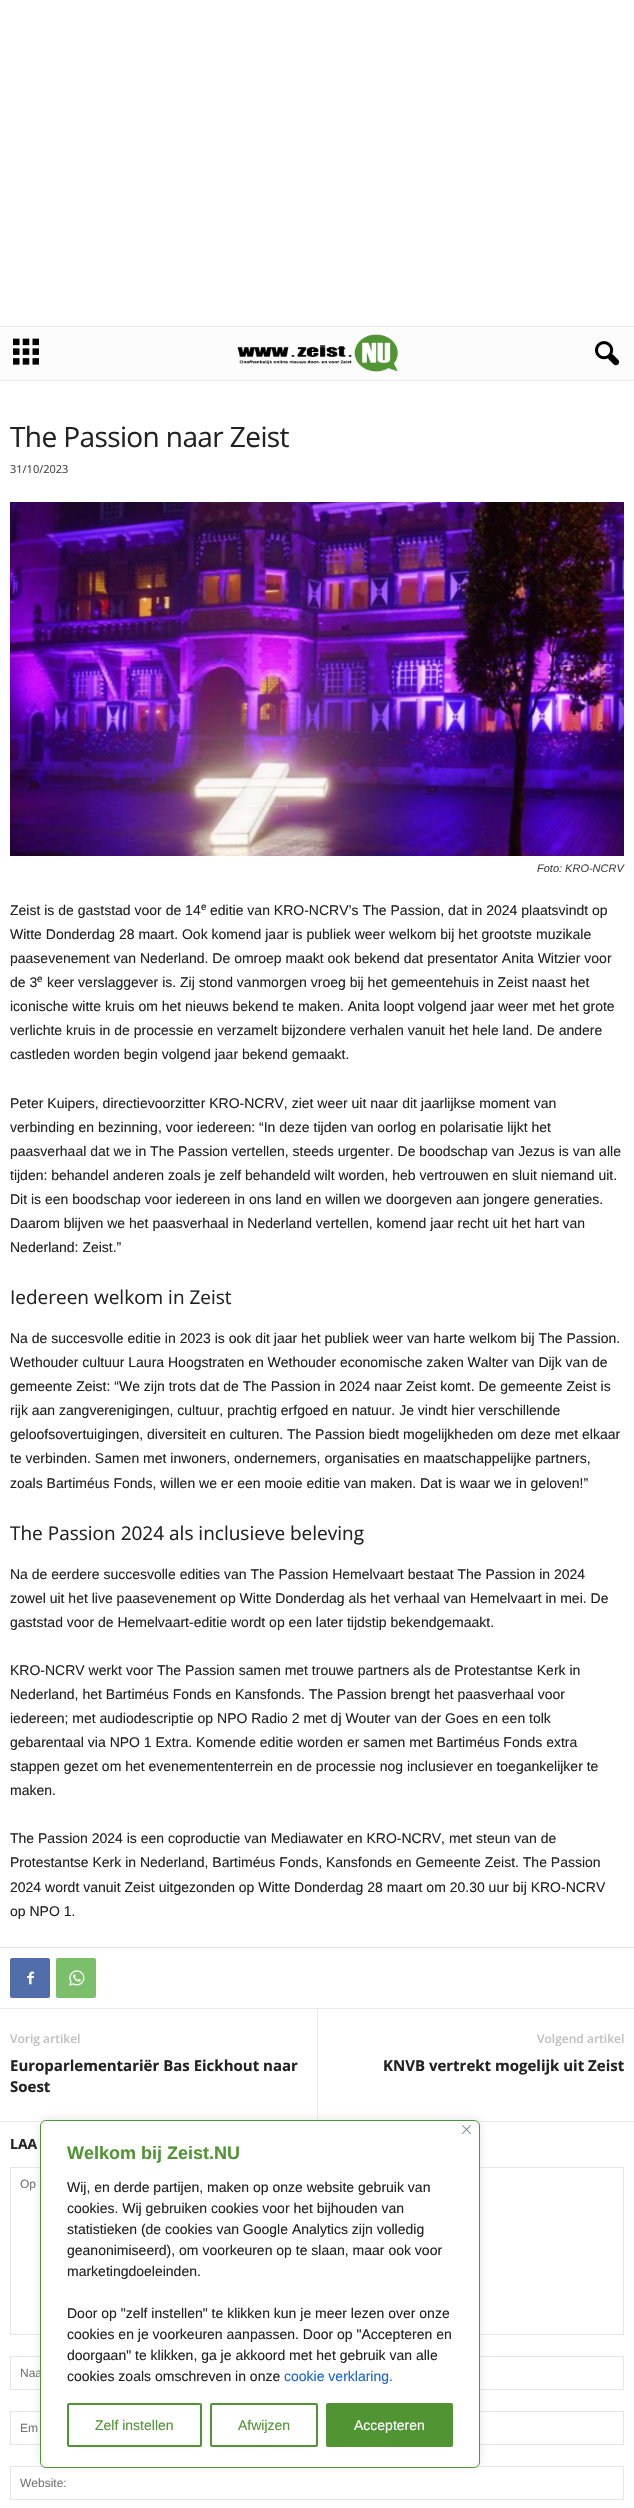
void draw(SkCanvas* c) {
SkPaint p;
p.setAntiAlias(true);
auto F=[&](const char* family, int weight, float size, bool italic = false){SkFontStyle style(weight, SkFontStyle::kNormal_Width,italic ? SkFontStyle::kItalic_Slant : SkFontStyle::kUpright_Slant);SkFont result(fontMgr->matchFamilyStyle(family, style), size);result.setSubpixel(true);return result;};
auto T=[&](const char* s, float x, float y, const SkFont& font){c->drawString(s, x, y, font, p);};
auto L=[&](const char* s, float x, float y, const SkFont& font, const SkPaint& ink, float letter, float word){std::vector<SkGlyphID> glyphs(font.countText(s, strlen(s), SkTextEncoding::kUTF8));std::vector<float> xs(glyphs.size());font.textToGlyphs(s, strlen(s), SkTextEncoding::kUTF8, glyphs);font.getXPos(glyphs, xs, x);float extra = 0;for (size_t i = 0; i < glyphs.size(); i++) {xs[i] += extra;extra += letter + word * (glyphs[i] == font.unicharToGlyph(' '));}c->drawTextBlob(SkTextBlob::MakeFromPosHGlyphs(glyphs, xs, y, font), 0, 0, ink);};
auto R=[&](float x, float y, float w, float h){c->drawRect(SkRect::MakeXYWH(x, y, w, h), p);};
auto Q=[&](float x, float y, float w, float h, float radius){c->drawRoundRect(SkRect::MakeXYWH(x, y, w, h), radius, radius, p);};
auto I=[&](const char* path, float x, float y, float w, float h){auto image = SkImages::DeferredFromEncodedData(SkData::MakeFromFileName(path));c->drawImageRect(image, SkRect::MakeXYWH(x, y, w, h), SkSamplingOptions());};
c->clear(0xffffffff);
p.setColor(0xfffcfcfc);
R(0,327,634,53);
p.setColor(0xffeaeaea);
R(0,326,634,1);
R(0,380,634,1);
I("1.png",13,338,26,27);
I("2.png",237,334,161,38);
I("3.png",595,341,25,25);
auto f1 = F("Open Sans",400,28);
p.setColor(0xff222222);
L("The Passion naar Zeist",10,447,f1,p,-.6,0);
auto f2 = F("Open Sans",400,11);
p.setColor(0xff444444);
T("31/10/2023",10,473,f2);
I("4.png",10,502,614,354);
auto f3 = F("Liberation Sans",400,11,true);
T("Foto: KRO-NCRV",537,872,f3);
auto f4 = F("Liberation Sans",400,14);
p.setColor(0xff222222);
T("Zeist is de gaststad voor de 14",10,915,f4);
auto f5 = F("Liberation Sans",400,10);
T("e",201,910,f5);
T("editie van KRO-NCRV’s The Passion, dat in 2024 plaatsvindt op",210,915,f4);
T("Witte Donderdag 28 maart. Ook komend jaar is publiek weer welkom bij het grootste muzikale",10,939,f4);
T("paasevenement van Nederland. De omroep maakt ook bekend dat presentator Anita Witzier voor",10,963,f4);
T("de 3",10,987,f4);
T("e",37,982,f5);
T("keer verslaggever is. Zij stond vanmorgen vroeg bij het gemeentehuis in Zeist naast het",47,987,f4);
T("iconische witte kruis om het nieuws bekend te maken. Anita loopt volgend jaar weer met het grote",10,1011,f4);
T("verlichte kruis in de processie en verzamelt bijzondere verhalen vanuit het hele land. De andere",10,1035,f4);
T("castleden worden begin volgend jaar bekend gemaakt.",10,1059,f4);
T("Peter Kuipers, directievoorzitter KRO-NCRV, ziet weer uit naar dit jaarlijkse moment van",10,1108,f4);
T("verbinding en bezinning, voor iedereen: “In deze tijden van oorlog en polarisatie lijkt het",10,1132,f4);
T("paasverhaal dat we in The Passion vertellen, steeds urgenter. De boodschap van Jezus is van alle",10,1156,f4);
T("tijden: behandel anderen zoals je zelf behandeld wilt worden, heb vertrouwen en sluit niemand uit.",10,1180,f4);
T("Dit is een boodschap voor iedereen in ons land en willen we doorgeven aan jongere generaties.",10,1204,f4);
T("Daarom blijven we het paasverhaal in Nederland vertellen, komend jaar recht uit het hart van",10,1228,f4);
T("Nederland: Zeist.”",10,1252,f4);
auto f6 = F("Open Sans",400,19);
T("Iedereen welkom in Zeist",10,1304,f6);
T("Na de succesvolle editie in 2023 is ook dit jaar het publiek weer van harte welkom bij The Passion.",10,1343,f4);
T("Wethouder cultuur Laura Hoogstraten en Wethouder economische zaken Walter van Dijk van de",10,1367,f4);
T("gemeente Zeist: “We zijn trots dat de The Passion in 2024 naar Zeist komt. De gemeente Zeist is",10,1391,f4);
T("rijk aan zangverenigingen, cultuur, prachtig erfgoed en natuur. Je vindt hier verschillende",10,1415,f4);
T("geloofsovertuigingen, diversiteit en culturen. The Passion biedt mogelijkheden om deze met elkaar",10,1439,f4);
T("te verbinden. Samen met inwoners, ondernemers, organisaties en maatschappelijke partners,",10,1463,f4);
T("zoals Bartiméus Fonds, willen we er een mooie editie van maken. Dat is waar we in geloven!”",10,1488,f4);
T("The Passion 2024 als inclusieve beleving",10,1540,f6);
T("Na de eerdere succesvolle edities van The Passion Hemelvaart bestaat The Passion in 2024",10,1579,f4);
T("zowel uit het live paasevenement op Witte Donderdag als het verhaal van Hemelvaart in mei. De",10,1603,f4);
T("gaststad voor de Hemelvaart-editie wordt op een later tijdstip bekendgemaakt.",10,1627,f4);
T("KRO-NCRV werkt voor The Passion samen met trouwe partners als de Protestantse Kerk in",10,1675,f4);
T("Nederland, het Bartiméus Fonds en Kansfonds. The Passion brengt het paasverhaal voor",10,1699,f4);
T("iedereen; met audiodescriptie op NPO Radio 2 met dj Wouter van der Goes en een tolk",10,1723,f4);
T("gebarentaal via NPO 1 Extra. Komende editie worden er samen met Bartiméus Fonds extra",10,1747,f4);
T("stappen gezet om het evenemententerrein en de processie nog inclusiever en toegankelijker te",10,1771,f4);
T("maken.",10,1795,f4);
T("The Passion 2024 is een coproductie van Mediawater en KRO-NCRV, met steun van de",10,1843,f4);
T("Protestantse Kerk in Nederland, Bartiméus Fonds, Kansfonds en Gemeente Zeist. The Passion",10,1867,f4);
T("2024 wordt vanuit Zeist uitgezonden op Witte Donderdag 28 maart om 20.30 uur bij KRO-NCRV",10,1892,f4);
T("op NPO 1.",10,1916,f4);
p.setColor(0xffe6e6e6);
R(0,1947,634,1);
p.setColor(0xff516eab);
Q(10,1958,40,40,2);
I("5.png",27,1971,7,14);
p.setColor(0xff7bbf6a);
Q(56,1958,40,40,2);
I("6.png",69,1970,16,16);
p.setColor(0xffeaeaea);
R(0,2008,634,1);
auto f7 = F("Open Sans",600,12);
p.setColor(0xffc1c1c1);
T("Vorig artikel",10,2043,f7);
auto f8 = F("Open Sans",700,15);
p.setColor(0xff222222);
T("Europarlementariër Bas Eickhout naar",10,2071,f8);
T("Soest",10,2092,f8);
p.setColor(0xffeaeaea);
R(317,2009,1,112);
p.setColor(0xffc1c1c1);
T("Volgend artikel",537,2043,f7);
p.setColor(0xff222222);
T("KNVB vertrekt mogelijk uit Zeist",383,2071,f8);
p.setColor(0xffeaeaea);
R(0,2121,634,1);
auto f9 = F("Open Sans",700,14);
p.setColor(0xff222222);
T("LAA",10,2149,f9);
p.setStroke(true);
p.setStrokeWidth(1);
p.setColor(0xffe6e6e6);
c->drawRect(SkRect::MakeXYWH(10.5,2167.5,613,167),p);
auto f10 = F("Liberation Sans",400,12);
p.setStroke(false);
p.setColor(0xff757575);
T("Op",20,2188,f10);
p.setStroke(true);
p.setColor(0xffe6e6e6);
c->drawRect(SkRect::MakeXYWH(10.5,2356.5,613,33),p);
p.setStroke(false);
p.setColor(0xff757575);
T("Naa",20,2377,f10);
p.setStroke(true);
p.setColor(0xffe6e6e6);
c->drawRect(SkRect::MakeXYWH(10.5,2411.5,613,33),p);
p.setStroke(false);
p.setColor(0xff757575);
T("Em",20,2432,f10);
p.setStroke(true);
p.setColor(0xffe6e6e6);
c->drawRect(SkRect::MakeXYWH(10.5,2466.5,613,33),p);
p.setStroke(false);
p.setColor(0xff757575);
T("Website:",20,2487,f10);
p.setColor(0x4dacabab);
p.setMaskFilter(SkMaskFilter::MakeBlur(kNormal_SkBlurStyle, 5));
c->drawRoundRect(SkRect::MakeXYWH(40,2119,440,348),6,6,p);
p.setMaskFilter(nullptr);
p.setColor(0xffffffff);
c->drawRoundRect(SkRect::MakeXYWH(40.5,2120.5,439,347),5.5,5.5,p);
p.setStroke(true);
p.setColor(0xff519434);
c->drawRoundRect(SkRect::MakeXYWH(40.5,2120.5,439,347),5.5,5.5,p);
I("7.png",462,2125,9,9);
auto f11 = F("Liberation Sans",700,18);
p.setStroke(false);
T("Welkom bij Zeist.NU",67,2159,f11);
p.setColor(0xff222222);
T("Wij, en derde partijen, maken op onze website gebruik van",67,2192,f4);
T("cookies. Wij gebruiken cookies voor het bijhouden van",67,2213,f4);
T("statistieken (de cookies van Google Analytics zijn volledig",67,2234,f4);
T("geanonimiseerd), om voorkeuren op te slaan, maar ook voor",67,2255,f4);
T("marketingdoeleinden.",67,2276,f4);
T("Door op \"zelf instellen\" te klikken kun je meer lezen over onze",67,2318,f4);
T("cookies en je voorkeuren aanpassen. Door op \"Accepteren en",67,2339,f4);
T("doorgaan\" te klikken, ga je akkoord met het gebruik van alle",67,2360,f4);
T("cookies zoals omschreven in onze",67,2381,f4);
p.setColor(0xff1863dc);
T("cookie verklaring.",284,2381,f4);
p.setStroke(true);
p.setStrokeWidth(2);
p.setColor(0xff519434);
c->drawRoundRect(SkRect::MakeXYWH(68,2404,133,42),1,1,p);
p.setStroke(false);
T("Zelf instellen",95,2430,f4);
p.setStroke(true);
c->drawRoundRect(SkRect::MakeXYWH(211,2404,106,42),1,1,p);
p.setStroke(false);
T("Afwijzen",238,2430,f4);
c->drawRoundRect(SkRect::MakeXYWH(327,2404,125,42),1,1,p);
p.setStroke(true);
c->drawRoundRect(SkRect::MakeXYWH(327,2404,125,42),1,1,p);
p.setStroke(false);
p.setColor(0xffffffff);
T("Accepteren",354,2430,f4);
}
